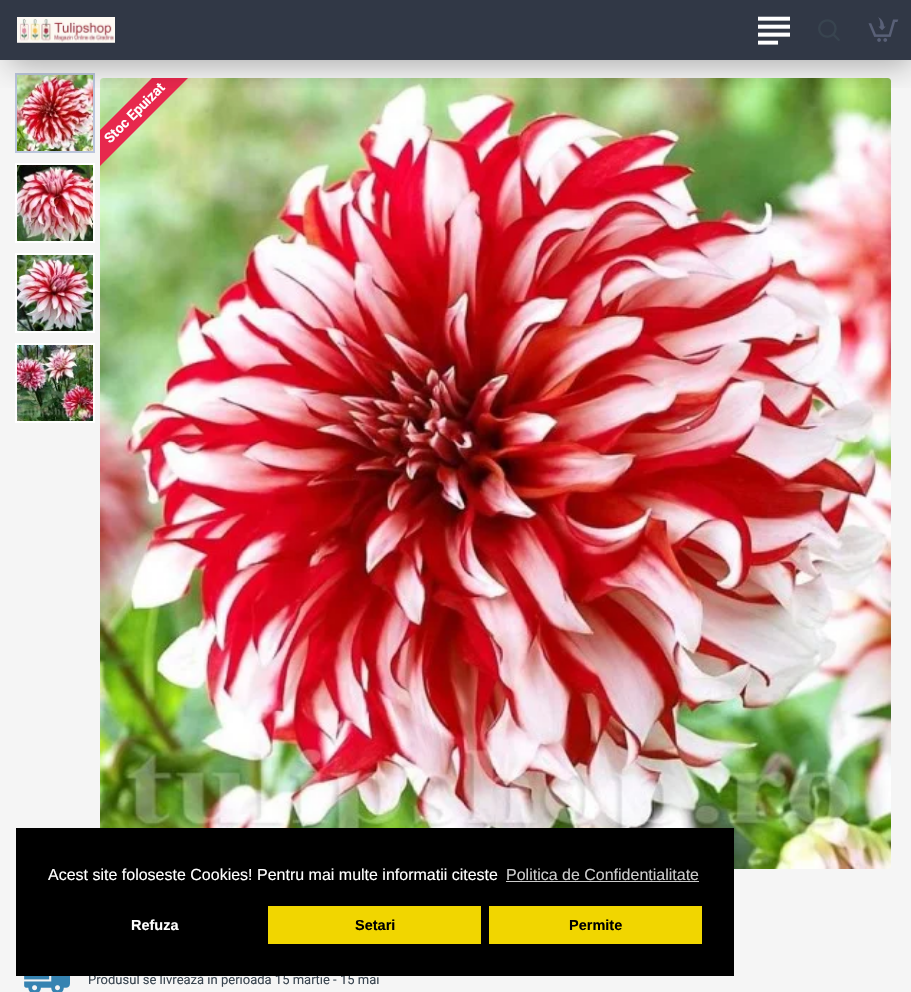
void draw(SkCanvas* c) {
SkPaint p;
p.setAntiAlias(true);
auto F=[&](const char* family, int weight, float size, bool italic = false){SkFontStyle style(weight, SkFontStyle::kNormal_Width,italic ? SkFontStyle::kItalic_Slant : SkFontStyle::kUpright_Slant);SkFont result(fontMgr->matchFamilyStyle(family, style), size);result.setSubpixel(true);return result;};
auto T=[&](const char* s, float x, float y, const SkFont& font){c->drawString(s, x, y, font, p);};
auto R=[&](float x, float y, float w, float h){c->drawRect(SkRect::MakeXYWH(x, y, w, h), p);};
auto I=[&](const char* path, float x, float y, float w, float h){auto image = SkImages::DeferredFromEncodedData(SkData::MakeFromFileName(path));c->drawImageRect(image, SkRect::MakeXYWH(x, y, w, h), SkSamplingOptions());};
auto P=[&](const char* data, bool evenOdd = false){SkPath result = *SkParsePath::FromSVGString(data);if (evenOdd) result.setFillType(SkPathFillType::kEvenOdd);return result;};
c->clear(0xfff5f5f5);
p.setColor(0xff313846);
R(0,0,911,60);
p.setStroke(true);
p.setStrokeWidth(2);
p.setColor(0xffbbc6dd);
c->drawRect(SkRect::MakeXYWH(16,74,78,78),p);
I("5.png",17,75,76,76);
I("9.png",100,78,791,791);
p.setStroke(false);
p.setColor(0xffe7284d);
c->drawPath(P("M188 78l-88 88v-36l52-52z"),p);
c->save();
c->clipRect(SkRect::MakeXYWH(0,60,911,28));
p.setColor(0x4d000000);
p.setMaskFilter(SkMaskFilter::MakeBlur(kNormal_SkBlurStyle, 15));
c->drawRect(SkRect::MakeXYWH(10,15,901,50),p);
p.setMaskFilter(nullptr);
c->restore();
I("1.png",17,17,98,26);
I("2.png",758,16,32,29);
I("3.png",818,19,22,22);
I("4.png",868,17,31,25);
p.setStroke(true);
p.setColor(0xffffffff);
c->drawRect(SkRect::MakeXYWH(16,164,78,78),p);
I("6.png",17,165,76,76);
c->drawRect(SkRect::MakeXYWH(16,254,78,78),p);
I("7.png",17,255,76,76);
c->drawRect(SkRect::MakeXYWH(16,344,78,78),p);
I("8.png",17,345,76,76);
auto f1 = F("Roboto",700,14);
p.setStroke(false);
c->save();
c->rotate(-45,110,144);
T("Stoc Epuizat",110,144,f1);
c->restore();
I("10.png",24,976,46,16);
auto f2 = F("Roboto",400,13);
p.setColor(0xff38444f);
T("Produsul se livrează în perioada 15 martie - 15 mai",88,984,f2);
p.setColor(0xff000000);
R(16,828,718,148);
auto f3 = F("Liberation Sans",400,16);
p.setColor(0xffffffff);
T("Acest site foloseste Cookies! Pentru mai multe informatii citeste",48,880,f3);
p.setColor(0xffcccccc);
T("Politica de Confidentialitate",506,880,f3);
R(506,881,193,1);
auto f4 = F("Liberation Sans",700,14.5);
p.setColor(0xffffffff);
T("Refuza",131,930,f4);
p.setColor(0xfff1d600);
R(268,906,213,38);
p.setColor(0xff000000);
T("Setari",355,930,f4);
p.setColor(0xfff1d600);
R(489,906,213,38);
p.setColor(0xff000000);
T("Permite",569,930,f4);
}
